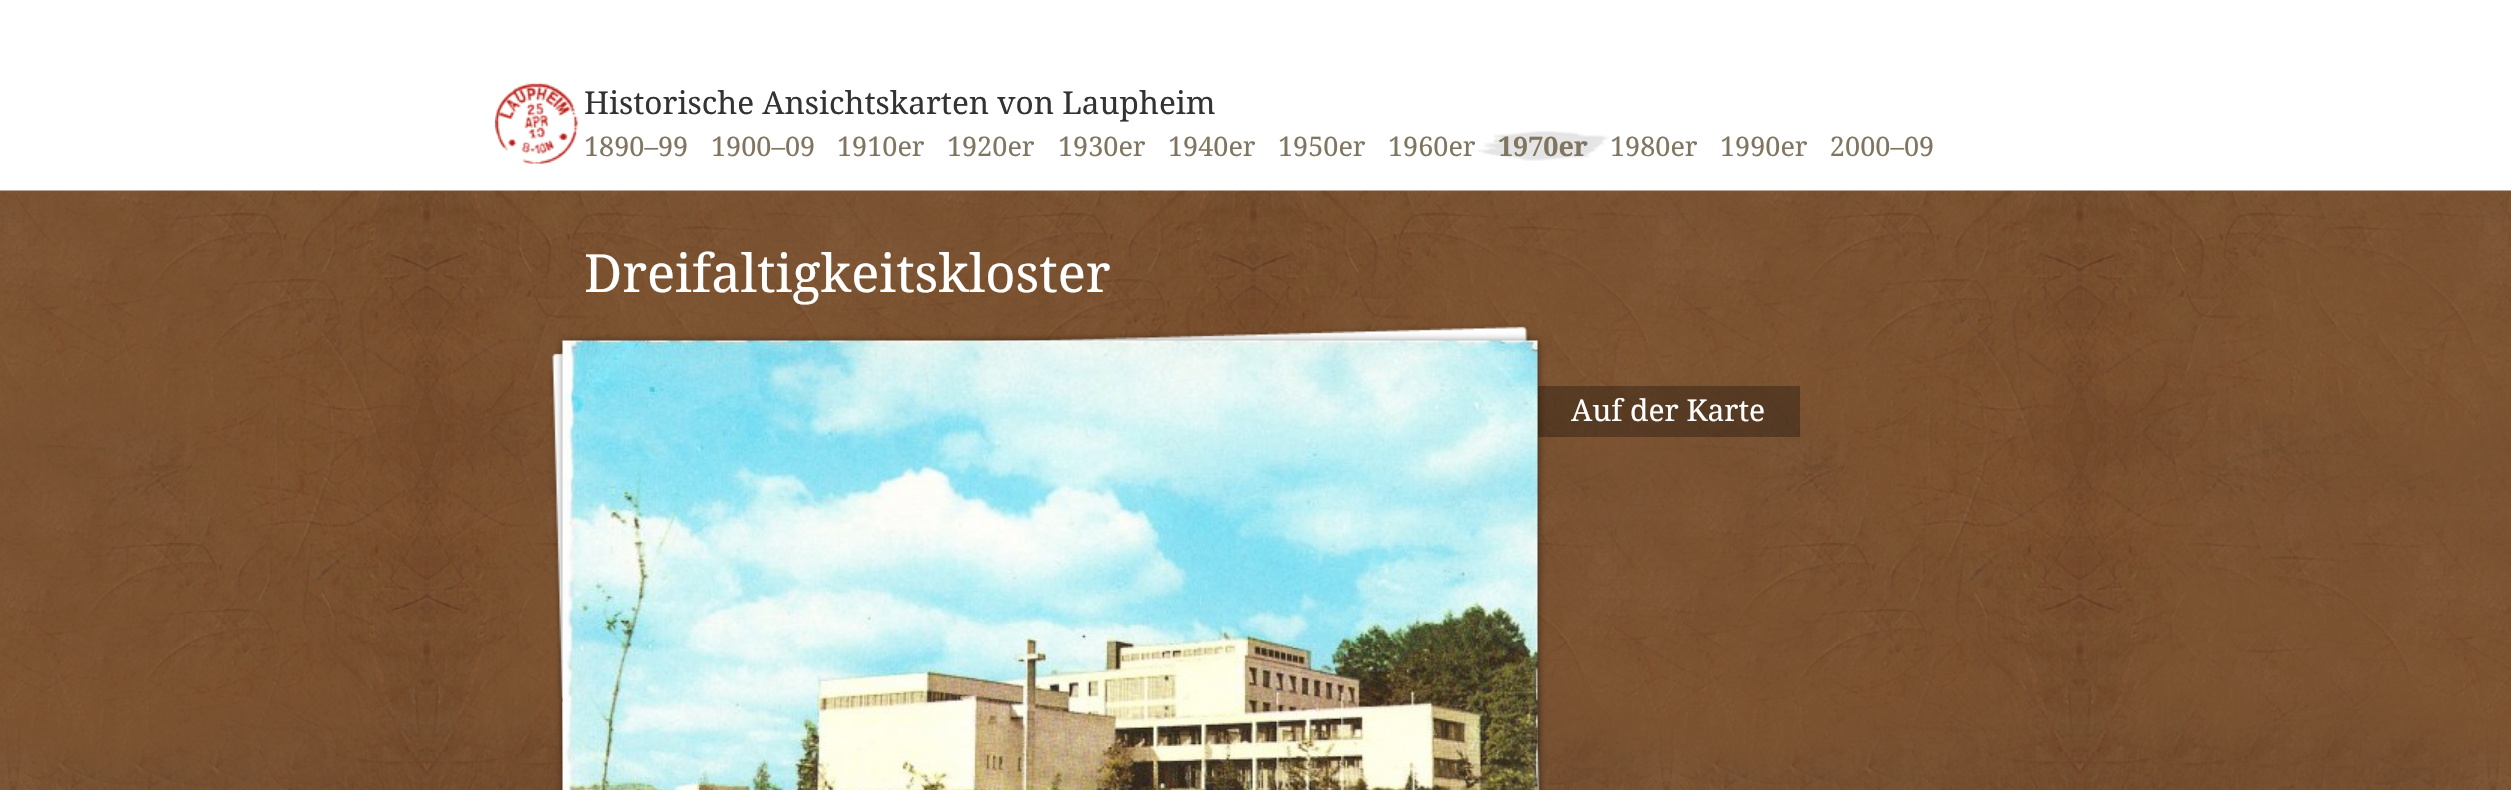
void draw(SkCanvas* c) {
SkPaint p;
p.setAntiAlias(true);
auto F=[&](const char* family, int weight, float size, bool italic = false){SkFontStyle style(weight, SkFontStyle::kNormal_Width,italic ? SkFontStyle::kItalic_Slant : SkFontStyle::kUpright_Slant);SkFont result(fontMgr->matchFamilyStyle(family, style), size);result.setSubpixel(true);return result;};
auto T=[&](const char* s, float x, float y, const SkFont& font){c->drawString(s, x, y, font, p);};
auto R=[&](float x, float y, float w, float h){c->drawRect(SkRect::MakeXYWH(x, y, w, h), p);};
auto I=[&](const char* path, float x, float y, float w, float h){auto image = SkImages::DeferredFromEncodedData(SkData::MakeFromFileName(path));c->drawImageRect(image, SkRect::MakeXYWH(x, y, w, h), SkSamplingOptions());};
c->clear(0xffffffff);
I("1.png",495,82,83,82);
auto f1 = F("Droid Serif",400,31.5);
p.setColor(0xff333333);
T("Historische Ansichtskarten von Laupheim",584,114,f1);
auto f2 = F("Droid Serif",400,27);
p.setColor(0xff807560);
T("1890–99",584,156,f2);
T("1900–09",711,156,f2);
T("1910er",837,156,f2);
T("1920er",947,156,f2);
T("1930er",1058,156,f2);
T("1940er",1168,156,f2);
T("1950er",1278,156,f2);
T("1960er",1388,156,f2);
I("2.png",1477,131,131,30);
auto f3 = F("Droid Serif",700,27);
T("1970er",1498,156,f3);
T("1980er",1610,156,f2);
T("1990er",1720,156,f2);
T("2000–09",1830,156,f2);
I("3.png",0,190,2511,600);
auto f4 = F("Droid Serif",400,52.5);
p.setColor(0xffffffff);
T("Dreifaltigkeitskloster",584,292,f4);
p.setColor(0x4d000000);
R(1538,386,262,51);
I("4.png",550,324,990,374);
I("5.png",559,702,983,88);
p.setColor(0x80000000);
p.setMaskFilter(SkMaskFilter::MakeBlur(kNormal_SkBlurStyle, 4));
c->drawRect(SkRect::MakeXYWH(563,341,975,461),p);
p.setMaskFilter(nullptr);
I("6.png",562,340,976,450);
auto f5 = F("Droid Serif",400,30);
p.setColor(0xffffffff);
T("Auf der Karte",1571,421,f5);
}
